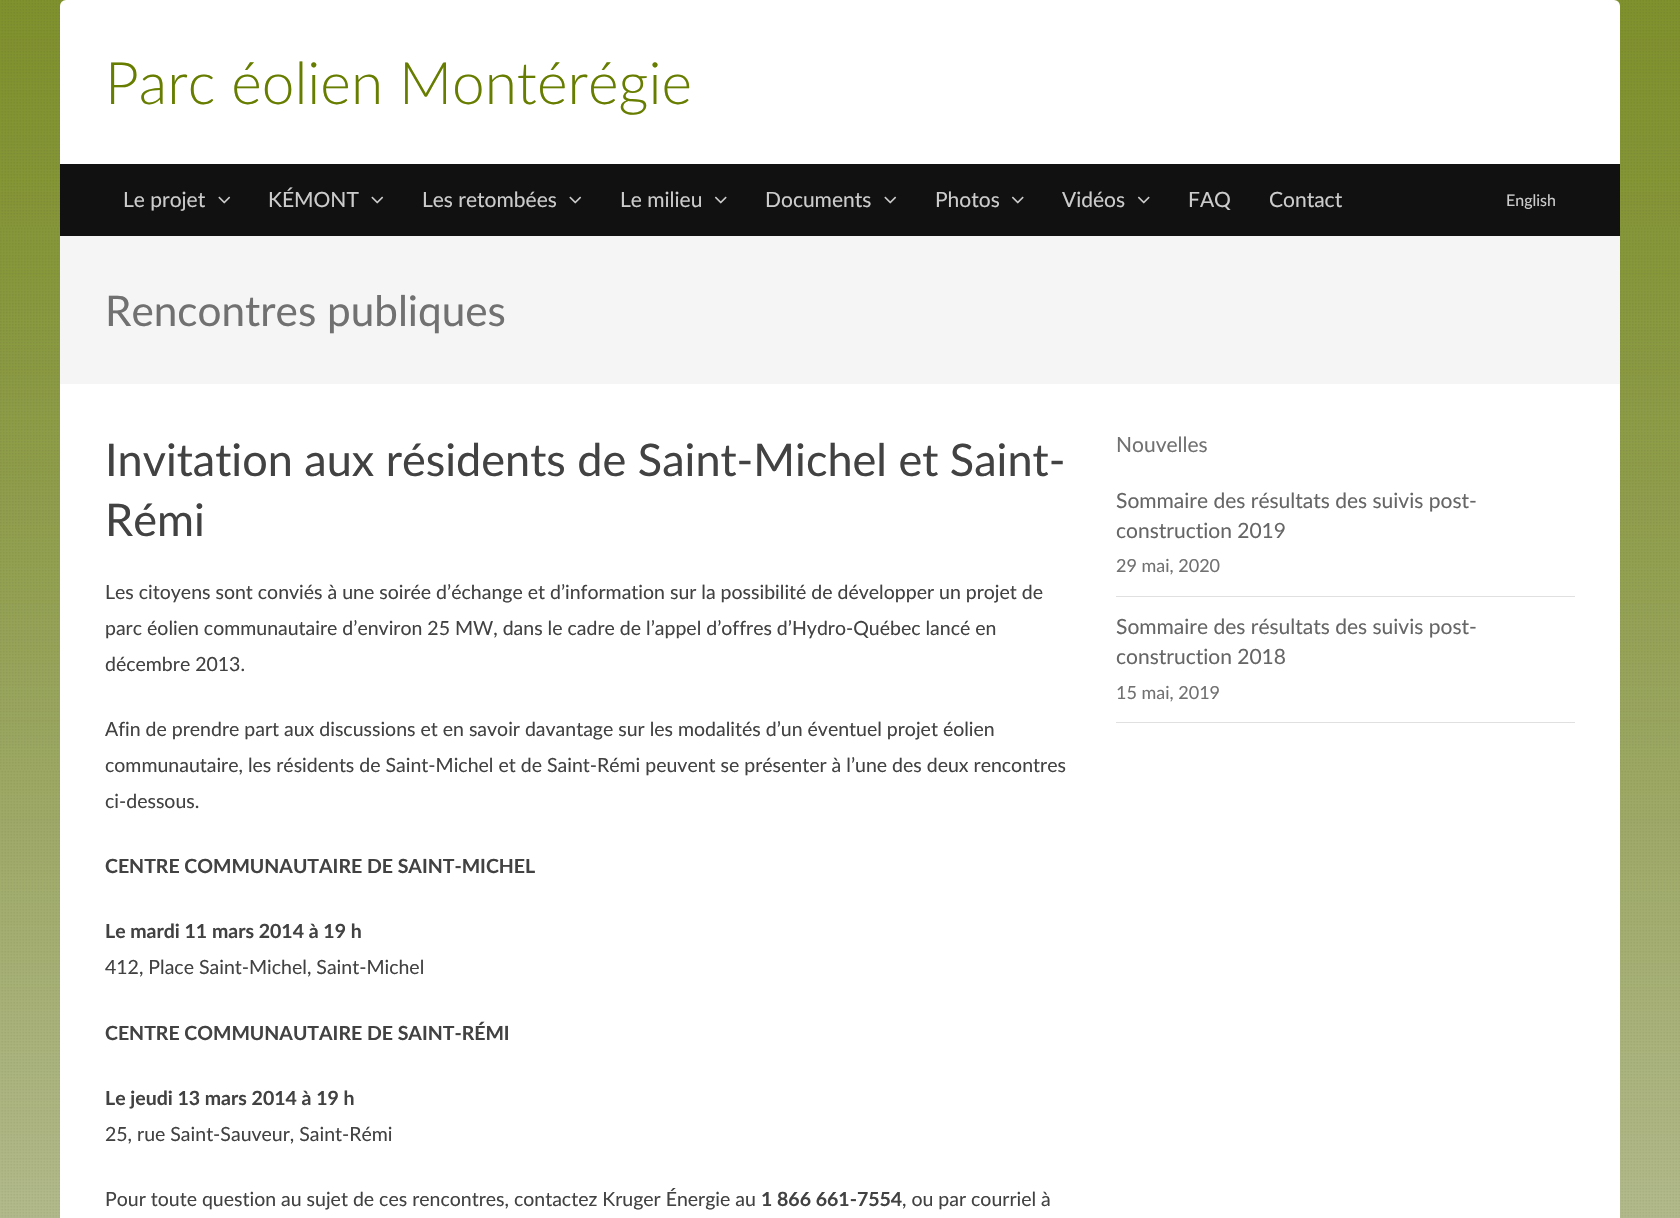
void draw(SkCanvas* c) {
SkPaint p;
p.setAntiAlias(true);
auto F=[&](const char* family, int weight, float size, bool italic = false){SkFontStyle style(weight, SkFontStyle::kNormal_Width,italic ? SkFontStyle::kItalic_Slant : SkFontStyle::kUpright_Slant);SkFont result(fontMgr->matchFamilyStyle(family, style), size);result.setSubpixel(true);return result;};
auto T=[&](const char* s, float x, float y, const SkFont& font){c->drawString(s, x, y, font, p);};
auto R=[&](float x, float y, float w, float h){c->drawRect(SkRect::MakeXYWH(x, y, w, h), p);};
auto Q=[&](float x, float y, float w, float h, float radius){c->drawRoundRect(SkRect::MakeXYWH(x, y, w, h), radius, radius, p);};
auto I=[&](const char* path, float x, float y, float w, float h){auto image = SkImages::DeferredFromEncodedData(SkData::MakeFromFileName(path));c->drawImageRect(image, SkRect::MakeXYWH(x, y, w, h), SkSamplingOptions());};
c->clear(0xffffffff);
I("1.png",0,0,1680,1218);
p.setColor(0xffffffff);
Q(60,0,1560,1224,6);
auto f1 = F("Lato",300,58.5);
p.setColor(0xff667d00);
T("Parc éolien Montérégie",105,104,f1);
p.setColor(0xff111111);
R(60,164,1560,72);
auto f2 = F("Lato",400,21);
p.setColor(0xffcccccc);
T("Le projet",123,207,f2);
I("2.png",218,196,13,8);
T("KÉMONT",268,207,f2);
I("2.png",371,196,13,8);
T("Les retombées",422,207,f2);
I("2.png",569,196,13,8);
T("Le milieu",620,207,f2);
I("3.png",714,196,13,8);
T("Documents",765,207,f2);
I("2.png",884,196,13,8);
T("Photos",935,207,f2);
I("3.png",1011,196,13,8);
T("Vidéos",1062,207,f2);
I("3.png",1137,196,13,8);
T("FAQ",1188,207,f2);
T("Contact",1269,207,f2);
auto f3 = F("Lato",400,16);
T("English",1506,206,f3);
p.setColor(0xfff5f5f5);
R(60,236,1560,148);
auto f4 = F("Lato",400,42.25);
p.setColor(0xff717171);
T("Rencontres publiques",105,326,f4);
auto f5 = F("Lato",400,45);
p.setColor(0xff424242);
T("Invitation aux résidents de Saint-Michel et Saint-",105,476,f5);
T("Rémi",105,536,f5);
auto f6 = F("Lato",400,19.5);
T("Les citoyens sont conviés à une soirée d’échange et d’information sur la possibilité de développer un projet de",105,599,f6);
T("parc éolien communautaire d’environ 25 MW, dans le cadre de l’appel d’offres d’Hydro-Québec lancé en",105,635,f6);
T("décembre 2013.",105,671,f6);
T("Afin de prendre part aux discussions et en savoir davantage sur les modalités d’un éventuel projet éolien",105,736,f6);
T("communautaire, les résidents de Saint-Michel et de Saint-Rémi peuvent se présenter à l’une des deux rencontres",105,772,f6);
T("ci-dessous.",105,808,f6);
auto f7 = F("Lato",700,19.5);
T("CENTRE COMMUNAUTAIRE DE SAINT-MICHEL",105,873,f7);
T("Le mardi 11 mars 2014 à 19 h",105,938,f7);
T("412, Place Saint-Michel, Saint-Michel",105,974,f6);
T("CENTRE COMMUNAUTAIRE DE SAINT-RÉMI",105,1040,f7);
T("Le jeudi 13 mars 2014 à 19 h",105,1105,f7);
T("25, rue Saint-Sauveur, Saint-Rémi",105,1141,f6);
T("Pour toute question au sujet de ces rencontres, contactez Kruger Énergie au",105,1206,f6);
T("1 866 661-7554",761,1206,f7);
T(", ou par courriel à",902,1206,f6);
p.setColor(0xff717171);
T("Nouvelles",1116,452,f2);
p.setColor(0xff666666);
T("Sommaire des résultats des suivis post-",1116,508,f2);
T("construction 2019",1116,538,f2);
auto f8 = F("Lato",400,18);
p.setColor(0xff717171);
T("29 mai, 2020",1116,572,f8);
p.setColor(0xffe0e0e0);
R(1116,596,459,1);
p.setColor(0xff666666);
T("Sommaire des résultats des suivis post-",1116,634,f2);
T("construction 2018",1116,664,f2);
p.setColor(0xff717171);
T("15 mai, 2019",1116,699,f8);
p.setColor(0xffe0e0e0);
R(1116,722,459,1);
}
